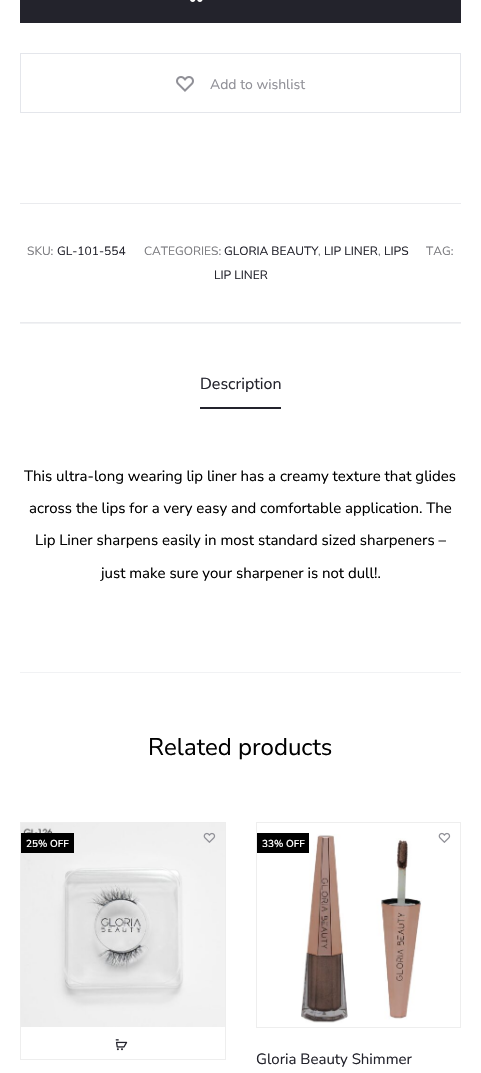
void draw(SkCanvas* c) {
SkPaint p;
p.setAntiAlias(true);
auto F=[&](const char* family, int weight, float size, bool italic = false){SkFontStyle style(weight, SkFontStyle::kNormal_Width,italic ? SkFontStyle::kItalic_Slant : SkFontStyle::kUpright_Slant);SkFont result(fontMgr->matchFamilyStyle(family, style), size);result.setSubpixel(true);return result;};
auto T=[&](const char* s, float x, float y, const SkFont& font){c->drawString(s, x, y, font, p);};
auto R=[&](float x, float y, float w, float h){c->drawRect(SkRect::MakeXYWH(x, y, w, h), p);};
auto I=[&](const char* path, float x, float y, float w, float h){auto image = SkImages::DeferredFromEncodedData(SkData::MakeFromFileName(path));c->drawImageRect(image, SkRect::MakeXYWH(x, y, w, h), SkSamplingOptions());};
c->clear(0xffffffff);
p.setColor(0xff23232c);
R(20,0,441,23);
I("1.png",190,0,13,2);
p.setStroke(true);
p.setStrokeWidth(1);
p.setColor(0xffe4e6eb);
c->drawRect(SkRect::MakeXYWH(20.5,53.5,440,59),p);
I("2.png",176,76,18,16);
auto f1 = F("Nunito Sans",400,14);
p.setStroke(false);
p.setColor(0xff909097);
T("Add to wishlist",210,89,f1);
p.setColor(0xffeaebee);
R(20,203,441,1);
R(20,322,441,1);
auto f2 = F("Nunito Sans",400,12);
p.setColor(0xff7c7c80);
T("SKU:",27,255,f2);
p.setColor(0xff23232c);
T("GL-101-554",57,255,f2);
p.setColor(0xff7c7c80);
T("CATEGORIES:",144,255,f2);
p.setColor(0xff23232c);
T("GLORIA BEAUTY",224,255,f2);
p.setColor(0xff7c7c80);
T(",",318,255,f2);
p.setColor(0xff23232c);
T("LIP LINER",324,255,f2);
p.setColor(0xff7c7c80);
T(",",378,255,f2);
p.setColor(0xff23232c);
T("LIPS",384,255,f2);
p.setColor(0xff7c7c80);
T("TAG:",426,255,f2);
p.setColor(0xff23232c);
T("LIP LINER",214,279,f2);
p.setColor(0xfff1f2f4);
R(20,323,441,1);
auto f3 = F("Nunito Sans",400,16);
p.setColor(0xff23232c);
T("Description",200,389,f3);
R(200,407,81,2);
auto f4 = F("Nunito Sans",400,15);
p.setColor(0xff000000);
T("This ultra-long wearing lip liner has a creamy texture that glides",24,481,f4);
T("across the lips for a very easy and comfortable application. The",29,513,f4);
T("Lip Liner sharpens easily in most standard sized sharpeners –",35,545,f4);
T("just make sure your sharpener is not dull!.",101,578,f4);
p.setColor(0xfff1f2f4);
R(20,672,441,1);
auto f5 = F("Nunito Sans",400,24);
p.setColor(0xff000000);
T("Related products",148,755,f5);
p.setStroke(true);
p.setColor(0xffeeeeee);
c->drawRect(SkRect::MakeXYWH(20.5,822.5,205,237),p);
I("3.png",21,823,204,204);
p.setStroke(false);
p.setColor(0xff000000);
R(21,833,53,20);
auto f6 = F("Nunito Sans",600,10);
p.setColor(0xffffffff);
T("25% OFF",26,847,f6);
I("4.png",203,832,13,11);
I("5.png",115,1039,13,12);
p.setStroke(true);
p.setColor(0xffeeeeee);
c->drawRect(SkRect::MakeXYWH(256.5,822.5,204,205),p);
I("6.png",301,834,121,189);
p.setStroke(false);
p.setColor(0xff000000);
R(257,833,52,20);
p.setColor(0xffffffff);
T("33% OFF",262,847,f6);
I("7.png",438,832,13,11);
p.setColor(0xff23232c);
T("Gloria Beauty Shimmer",256,1064,f4);
}
